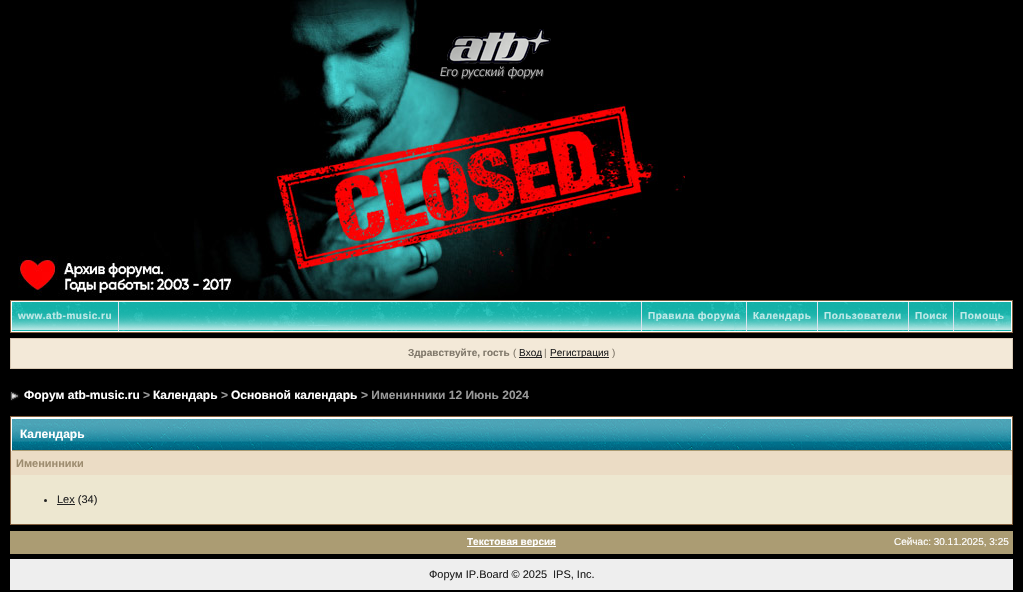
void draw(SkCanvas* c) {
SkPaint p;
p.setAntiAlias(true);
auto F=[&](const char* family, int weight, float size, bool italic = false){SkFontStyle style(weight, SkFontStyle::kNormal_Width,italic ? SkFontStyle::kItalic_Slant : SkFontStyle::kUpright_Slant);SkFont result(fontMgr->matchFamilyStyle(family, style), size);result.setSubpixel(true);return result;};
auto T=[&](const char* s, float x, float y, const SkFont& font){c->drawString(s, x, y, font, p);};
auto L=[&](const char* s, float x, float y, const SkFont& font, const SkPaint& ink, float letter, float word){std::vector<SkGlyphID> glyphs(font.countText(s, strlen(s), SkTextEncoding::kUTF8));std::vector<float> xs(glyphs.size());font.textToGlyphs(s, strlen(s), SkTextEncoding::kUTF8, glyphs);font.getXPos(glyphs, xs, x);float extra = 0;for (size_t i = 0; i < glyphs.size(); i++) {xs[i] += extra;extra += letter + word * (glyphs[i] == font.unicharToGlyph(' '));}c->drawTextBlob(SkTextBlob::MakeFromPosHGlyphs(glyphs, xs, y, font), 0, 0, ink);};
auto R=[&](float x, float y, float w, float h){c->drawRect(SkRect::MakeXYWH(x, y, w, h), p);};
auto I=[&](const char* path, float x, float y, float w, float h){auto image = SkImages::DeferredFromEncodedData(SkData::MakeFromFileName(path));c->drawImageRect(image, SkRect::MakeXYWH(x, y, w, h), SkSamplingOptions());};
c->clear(0xff000000);
I("1.png",18,0,667,299);
I("2.png",440,29,111,51);
p.setColor(0xffffffff);
R(11,301,1001,1);
p.setStroke(true);
p.setStrokeWidth(1);
p.setColor(0xff815f3e);
c->drawRect(SkRect::MakeXYWH(10.5,300.5,1002,32),p);
I("3.png",12,302,999,29);
p.setStroke(false);
p.setColor(0xffffffff);
R(1011,302,1,30);
R(11,331,1001,1);
R(11,302,1,30);
p.setColor(0xffdce3ee);
R(118,302,1,29);
auto f1 = F("Liberation Sans",700,10);
p.setColor(0xffc0eae8);
L("www.atb-music.ru",18,319,f1,p,.5,0);
p.setColor(0xffdce3ee);
R(641,302,1,29);
p.setColor(0xffc0eae8);
L("Правила форума",648,319,f1,p,.5,0);
p.setColor(0xffdce3ee);
R(746,302,1,29);
p.setColor(0xffc0eae8);
L("Календарь",753,319,f1,p,.5,0);
p.setColor(0xffdce3ee);
R(817,302,1,29);
p.setColor(0xffc0eae8);
L("Пользователи",824,319,f1,p,.5,0);
p.setColor(0xffdce3ee);
R(908,302,1,29);
p.setColor(0xffc0eae8);
L("Поиск",915,319,f1,p,.5,0);
p.setColor(0xffdce3ee);
R(953,302,1,29);
p.setColor(0xffc0eae8);
L("Помощь",960,319,f1,p,.5,0);
p.setColor(0xfff3e9d8);
c->drawRect(SkRect::MakeXYWH(10.5,338.5,1002,30),p);
p.setStroke(true);
p.setColor(0xffd7c8b4);
c->drawRect(SkRect::MakeXYWH(10.5,338.5,1002,30),p);
p.setStroke(false);
p.setColor(0xff80786a);
T("Здравствуйте, гость",408,356,f1);
auto f2 = F("Liberation Sans",400,10);
T("(",513,356,f2);
p.setColor(0xff222222);
R(519,357,23,1);
T("Вход",519,356,f2);
p.setColor(0xff80786a);
T("|",544,356,f2);
p.setColor(0xff222222);
R(550,357,59,1);
T("Регистрация",550,356,f2);
p.setColor(0xff80786a);
T(")",612,356,f2);
I("4.png",10,391,10,10);
auto f3 = F("Liberation Sans",700,12);
p.setColor(0xffffffff);
T("Форум atb-music.ru",24,399,f3);
p.setColor(0xff999999);
T(">",143,399,f3);
p.setColor(0xffffffff);
T("Календарь",153,399,f3);
p.setColor(0xff999999);
T(">",221,399,f3);
p.setColor(0xffffffff);
T("Основной календарь",231,399,f3);
p.setColor(0xff999999);
T("> Именинники 12 Июнь 2024",361,399,f3);
p.setColor(0xffffffff);
R(11,417,1001,1);
p.setStroke(true);
p.setColor(0xff815f3e);
c->drawRect(SkRect::MakeXYWH(10.5,416.5,1002,108),p);
I("5.png",12,419,999,31);
p.setStroke(false);
p.setColor(0xffffffff);
R(11,418,1001,1);
R(1011,418,1,33);
p.setColor(0xffab9c73);
R(11,450,1001,1);
p.setColor(0xffffffff);
R(11,418,1,33);
T("Календарь",20,438,f3);
p.setColor(0xffebdcc5);
R(11,451,1001,24);
auto f4 = F("Liberation Sans",700,11);
p.setColor(0xff9d8c6f);
T("Именинники",16,467,f4);
p.setColor(0xffede7d0);
R(11,475,1001,49);
p.setColor(0xff222222);
c->drawCircle(45.5,500.5,1.5,p);
R(57,504,18,1);
auto f5 = F("Liberation Sans",400,11);
T("Lex (34)",57,503,f5);
p.setColor(0xffab9c73);
R(10,531,1003,23);
p.setColor(0xffffffff);
R(467,546,89,1);
T("Текстовая версия",467,545,f1);
T("Сейчас: 30.11.2025, 3:25",894,545,f2);
p.setColor(0xffeeeeee);
R(10,559,1003,31);
p.setColor(0xff222222);
T("Форум IP.Board © 2025",429,578,f5);
T("IPS, Inc.",553,578,f5);
}
